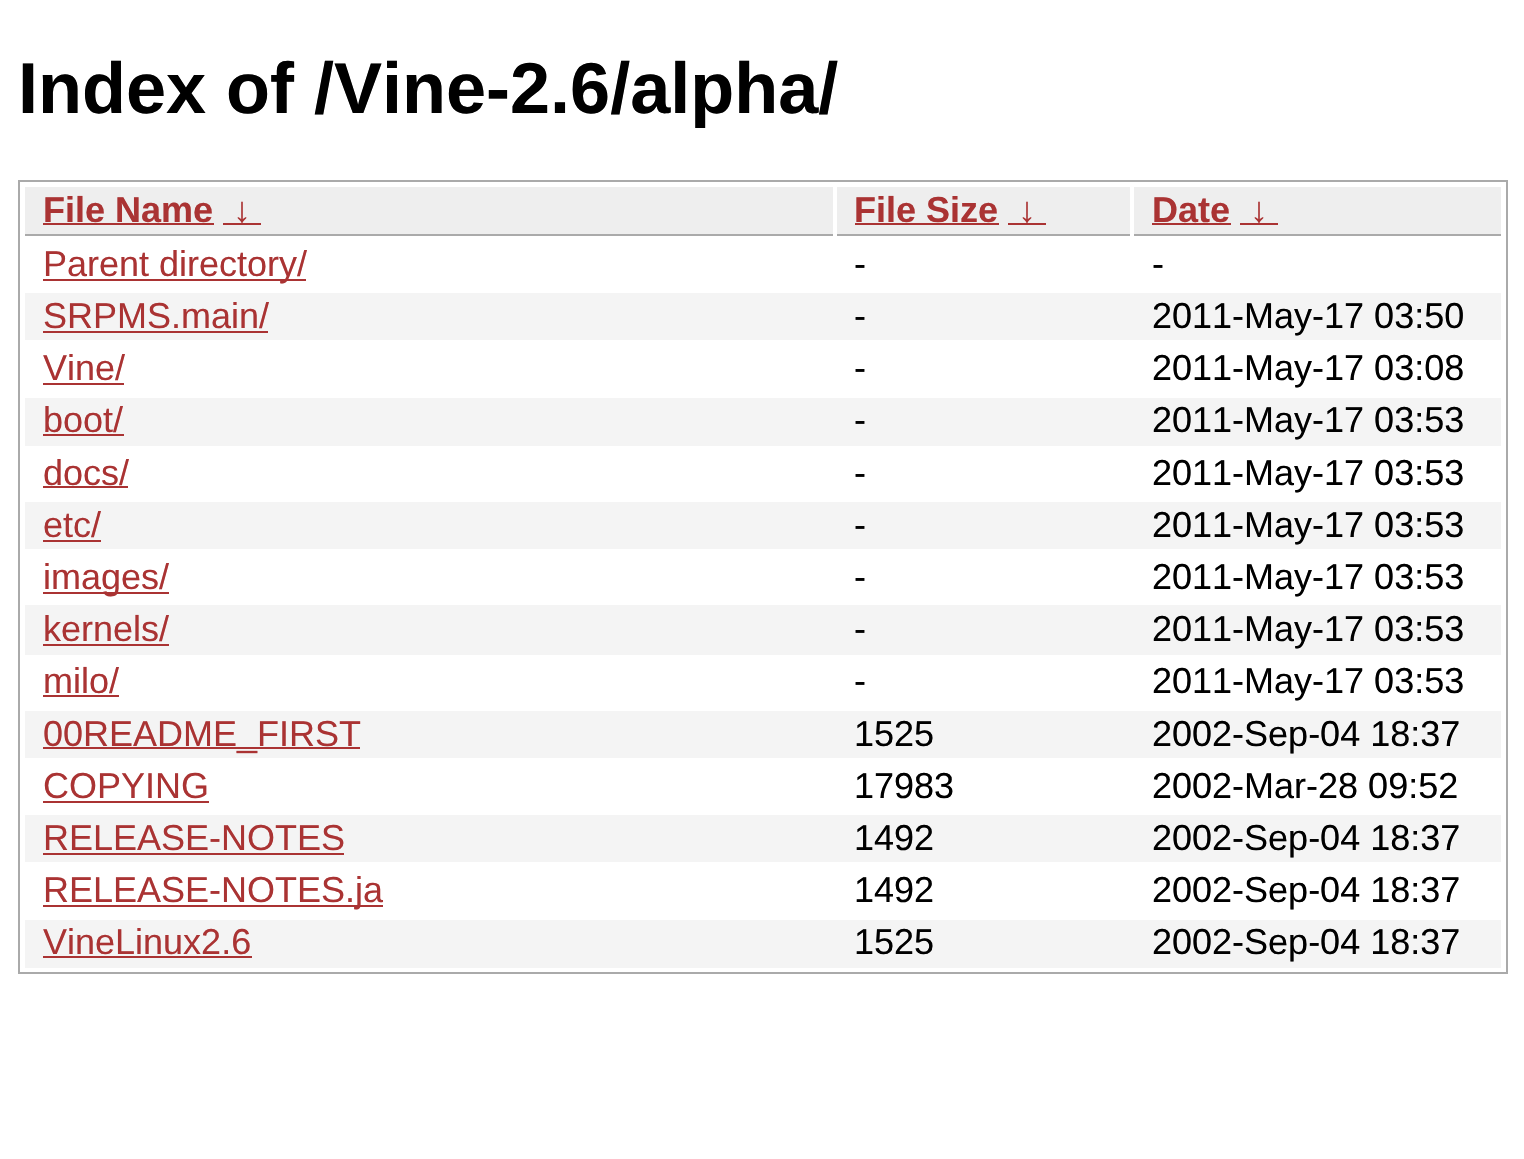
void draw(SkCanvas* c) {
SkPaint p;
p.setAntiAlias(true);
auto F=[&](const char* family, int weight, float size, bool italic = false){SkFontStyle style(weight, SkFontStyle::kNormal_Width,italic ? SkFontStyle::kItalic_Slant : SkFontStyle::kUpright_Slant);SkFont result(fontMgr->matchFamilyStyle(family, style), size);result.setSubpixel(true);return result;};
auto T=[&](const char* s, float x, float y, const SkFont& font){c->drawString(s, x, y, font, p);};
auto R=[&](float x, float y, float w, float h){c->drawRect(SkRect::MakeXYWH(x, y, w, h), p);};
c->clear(0xffffffff);
auto f1 = F("Liberation Sans",700,72);
p.setColor(0xff000000);
T("Index of /Vine-2.6/alpha/",18,113,f1);
p.setStroke(true);
p.setStrokeWidth(2);
p.setColor(0xffaaaaaa);
c->drawRect(SkRect::MakeXYWH(19,181,1488,792),p);
p.setStroke(false);
p.setColor(0xffeeeeee);
R(25,187,808,47);
p.setColor(0xffaaaaaa);
R(25,234,808,2);
auto f2 = F("Liberation Sans",700,36);
p.setColor(0xffaa3333);
T("File Name",43,222,f2);
R(43,223,171,2);
R(223,223,38,2);
T("↓",233,222,f2);
p.setColor(0xffeeeeee);
R(837,187,293,47);
p.setColor(0xffaaaaaa);
R(837,234,293,2);
p.setColor(0xffaa3333);
T("File Size",854,222,f2);
R(855,223,144,2);
R(1008,223,38,2);
T("↓",1018,222,f2);
p.setColor(0xffeeeeee);
R(1134,187,367,47);
p.setColor(0xffaaaaaa);
R(1134,234,367,2);
p.setColor(0xffaa3333);
T("Date",1152,222,f2);
R(1152,223,79,2);
R(1240,223,38,2);
T("↓",1250,222,f2);
R(43,279,263,2);
auto f3 = F("Liberation Sans",400,36);
T("Parent directory/",43,276,f3);
p.setColor(0xff000000);
T("-",854,276,f3);
T("-",1152,276,f3);
p.setColor(0xfff4f4f4);
R(25,293,1476,47);
p.setColor(0xffaa3333);
T("SRPMS.main/",43,328,f3);
R(43,331,225,2);
p.setColor(0xff000000);
T("-",854,328,f3);
T("2011-May-17 03:50",1152,328,f3);
p.setColor(0xffaa3333);
T("Vine/",43,380,f3);
R(43,383,81,2);
p.setColor(0xff000000);
T("-",854,380,f3);
T("2011-May-17 03:08",1152,380,f3);
p.setColor(0xfff4f4f4);
R(25,398,1476,48);
p.setColor(0xffaa3333);
T("boot/",43,432,f3);
R(43,434,81,2);
p.setColor(0xff000000);
T("-",854,432,f3);
T("2011-May-17 03:53",1152,432,f3);
p.setColor(0xffaa3333);
T("docs/",43,485,f3);
R(43,486,85,2);
p.setColor(0xff000000);
T("-",854,485,f3);
T("2011-May-17 03:53",1152,485,f3);
p.setColor(0xfff4f4f4);
R(25,502,1476,47);
p.setColor(0xffaa3333);
T("etc/",43,537,f3);
R(43,540,58,2);
p.setColor(0xff000000);
T("-",854,537,f3);
T("2011-May-17 03:53",1152,537,f3);
p.setColor(0xffaa3333);
R(43,592,126,2);
T("images/",43,589,f3);
p.setColor(0xff000000);
T("-",854,589,f3);
T("2011-May-17 03:53",1152,589,f3);
p.setColor(0xfff4f4f4);
R(25,605,1476,50);
p.setColor(0xffaa3333);
T("kernels/",43,641,f3);
R(43,644,126,2);
p.setColor(0xff000000);
T("-",854,641,f3);
T("2011-May-17 03:53",1152,641,f3);
p.setColor(0xffaa3333);
T("milo/",43,693,f3);
R(43,695,76,2);
p.setColor(0xff000000);
T("-",854,693,f3);
T("2011-May-17 03:53",1152,693,f3);
p.setColor(0xfff4f4f4);
R(25,711,1476,47);
p.setColor(0xffaa3333);
R(43,747,317,2);
T("00README_FIRST",43,746,f3);
p.setColor(0xff000000);
T("1525",854,746,f3);
T("2002-Sep-04 18:37",1152,746,f3);
p.setColor(0xffaa3333);
T("COPYING",43,798,f3);
R(43,801,166,2);
p.setColor(0xff000000);
T("17983",854,798,f3);
T("2002-Mar-28 09:52",1152,798,f3);
p.setColor(0xfff4f4f4);
R(25,815,1476,47);
p.setColor(0xffaa3333);
T("RELEASE-NOTES",43,850,f3);
R(43,853,301,2);
p.setColor(0xff000000);
T("1492",854,850,f3);
T("2002-Sep-04 18:37",1152,850,f3);
p.setColor(0xffaa3333);
R(43,905,340,2);
T("RELEASE-NOTES.ja",43,902,f3);
p.setColor(0xff000000);
T("1492",854,902,f3);
T("2002-Sep-04 18:37",1152,902,f3);
p.setColor(0xfff4f4f4);
R(25,920,1476,48);
p.setColor(0xffaa3333);
T("VineLinux2.6",43,954,f3);
R(43,956,209,2);
p.setColor(0xff000000);
T("1525",854,954,f3);
T("2002-Sep-04 18:37",1152,954,f3);
}
